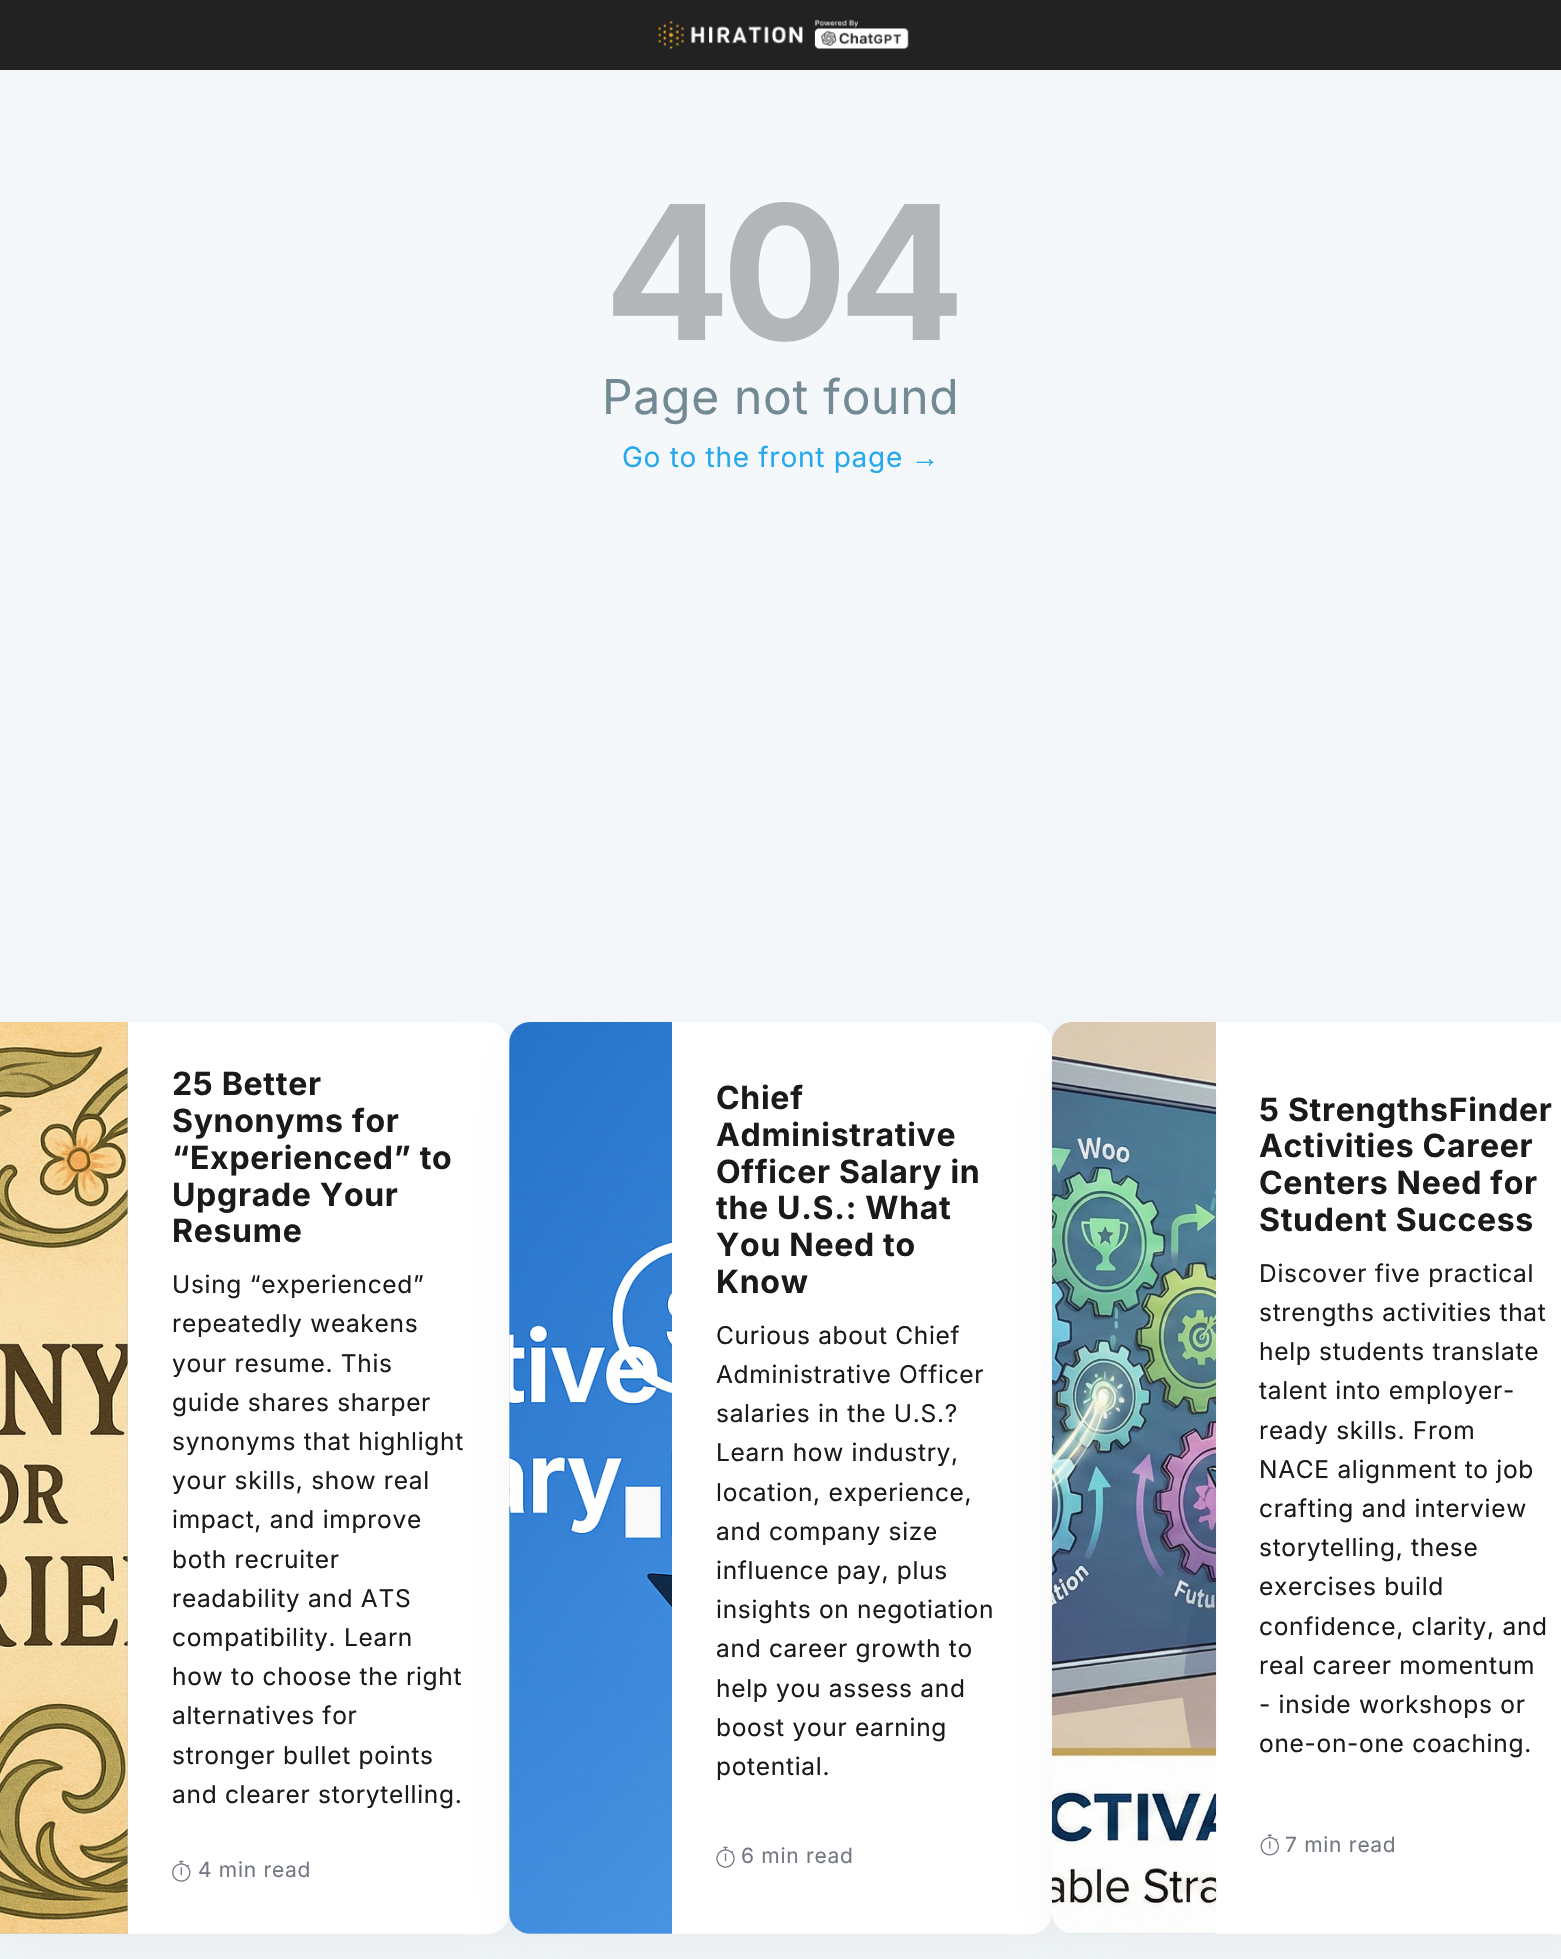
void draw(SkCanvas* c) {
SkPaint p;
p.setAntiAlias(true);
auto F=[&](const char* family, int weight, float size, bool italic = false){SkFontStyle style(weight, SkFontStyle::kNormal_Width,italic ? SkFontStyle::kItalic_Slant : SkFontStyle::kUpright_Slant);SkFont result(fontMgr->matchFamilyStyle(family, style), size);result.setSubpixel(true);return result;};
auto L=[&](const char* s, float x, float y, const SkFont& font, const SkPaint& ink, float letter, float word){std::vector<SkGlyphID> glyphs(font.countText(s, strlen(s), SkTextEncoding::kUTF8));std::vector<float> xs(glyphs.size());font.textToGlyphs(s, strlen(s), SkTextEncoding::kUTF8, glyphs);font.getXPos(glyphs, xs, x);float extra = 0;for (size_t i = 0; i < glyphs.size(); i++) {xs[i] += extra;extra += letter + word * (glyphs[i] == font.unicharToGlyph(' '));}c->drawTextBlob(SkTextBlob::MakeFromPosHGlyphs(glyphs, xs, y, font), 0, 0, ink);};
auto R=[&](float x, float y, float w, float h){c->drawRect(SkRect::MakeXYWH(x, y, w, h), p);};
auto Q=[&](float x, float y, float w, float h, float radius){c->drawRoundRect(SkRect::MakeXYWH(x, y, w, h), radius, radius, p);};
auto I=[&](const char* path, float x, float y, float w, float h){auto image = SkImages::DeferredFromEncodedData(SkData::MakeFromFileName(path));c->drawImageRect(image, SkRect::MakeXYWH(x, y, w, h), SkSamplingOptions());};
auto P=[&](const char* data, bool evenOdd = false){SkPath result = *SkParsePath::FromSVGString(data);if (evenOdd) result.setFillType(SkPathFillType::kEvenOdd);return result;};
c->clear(0xfff4f8fb);
p.setColor(0xff222222);
R(0,0,1561,70);
I("1.png",658,19,251,31);
auto f1 = F("Inter",700,187);
p.setColor(0xffb3b5b8);
L("404",604,340,f1,p,-9,0);
auto f2 = F("Inter",400,48);
p.setColor(0xff738a94);
L("Page not found",602,414,f2,p,.7,0);
auto f3 = F("Inter",400,28);
p.setColor(0xff26a8ed);
L("Go to the front page",622,467,f3,p,.7,0);
auto f4 = F("Liberation Sans",400,28);
L("→",911,467,f4,p,.7,0);
p.setColor(0x0f272c31);
p.setMaskFilter(SkMaskFilter::MakeBlur(kNormal_SkBlurStyle, 33));
c->drawRoundRect(SkRect::MakeXYWH(-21,1047,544,911),21,21,p);
p.setMaskFilter(nullptr);
p.setColor(0xffffffff);
Q(-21,1022,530,912,21);
p.setColor(0xffc5d2d9);
R(0,1022,128,912);
I("2.png",0,1022,128,912);
auto f5 = F("Inter",700,32);
p.setColor(0xff1a1a1a);
L("25 Better",172,1095,f5,p,.7,0);
L("Synonyms for",172,1132,f5,p,.7,0);
p.setColor(0x0f272c31);
p.setMaskFilter(SkMaskFilter::MakeBlur(kNormal_SkBlurStyle, 33));
c->drawRoundRect(SkRect::MakeXYWH(523,1047,543,911),21,21,p);
p.setMaskFilter(nullptr);
p.setColor(0xff1a1a1a);
L("“Experienced” to",172,1169,f5,p,.7,0);
L("Upgrade Your",172,1206,f5,p,.7,0);
L("Resume",172,1242,f5,p,.7,0);
auto f6 = F("Inter",400,24.5);
L("Using “experienced”",172,1293,f6,p,.7,0);
L("repeatedly weakens",172,1332,f6,p,.7,0);
L("your resume. This",172,1372,f6,p,.7,0);
L("guide shares sharper",172,1411,f6,p,.7,0);
L("synonyms that highlight",172,1450,f6,p,.7,0);
L("your skills, show real",172,1489,f6,p,.7,0);
L("impact, and improve",172,1528,f6,p,.7,0);
L("both recruiter",172,1568,f6,p,.7,0);
L("readability and ATS",172,1607,f6,p,.7,0);
L("compatibility. Learn",172,1646,f6,p,.7,0);
L("how to choose the right",172,1685,f6,p,.7,0);
L("alternatives for",172,1724,f6,p,.7,0);
L("stronger bullet points",172,1764,f6,p,.7,0);
L("and clearer storytelling.",172,1803,f6,p,.7,0);
I("3.png",172,1860,19,22);
auto f7 = F("Inter",400,21);
p.setColor(0xff747882);
L("4 min read",198,1877,f7,p,.7,0);
p.setColor(0xffffffff);
Q(509,1022,543,912,21);
p.setColor(0xffc5d2d9);
c->drawPath(P("M530 1022h142v912h-142c-11.5 0-21-9.5-21-21v-870c0-11.5 9.5-21 21-21z"),p);
I("4.png",509,1022,163,912);
p.setColor(0xff1a1a1a);
L("Chief",716,1109,f5,p,.7,0);
L("Administrative",716,1146,f5,p,.7,0);
p.setColor(0x0f272c31);
p.setMaskFilter(SkMaskFilter::MakeBlur(kNormal_SkBlurStyle, 33));
c->drawRoundRect(SkRect::MakeXYWH(1066,1047,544,911),21,21,p);
p.setMaskFilter(nullptr);
p.setColor(0xff1a1a1a);
L("Officer Salary in",716,1183,f5,p,.7,0);
L("the U.S.: What",716,1219,f5,p,.7,0);
L("You Need to",716,1256,f5,p,.7,0);
L("Know",716,1293,f5,p,.7,0);
L("Curious about Chief",716,1344,f6,p,.7,0);
L("Administrative Officer",716,1383,f6,p,.7,0);
L("salaries in the U.S.?",716,1422,f6,p,.7,0);
L("Learn how industry,",716,1461,f6,p,.7,0);
L("location, experience,",716,1501,f6,p,.7,0);
L("and company size",716,1540,f6,p,.7,0);
L("influence pay, plus",716,1579,f6,p,.7,0);
L("insights on negotiation",716,1618,f6,p,.7,0);
L("and career growth to",716,1657,f6,p,.7,0);
L("help you assess and",716,1697,f6,p,.7,0);
L("boost your earning",716,1736,f6,p,.7,0);
L("potential.",716,1775,f6,p,.7,0);
I("5.png",716,1846,19,22);
p.setColor(0xff747882);
L("6 min read",741,1863,f7,p,.7,0);
p.setColor(0xffffffff);
Q(1052,1022,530,912,21);
p.setColor(0xffc5d2d9);
c->drawPath(P("M1073 1022h143v912h-143c-11.5 0-21-9.5-21-21v-870c0-11.5 9.5-21 21-21z"),p);
I("6.png",1051,1022,166,912);
p.setColor(0xff1a1a1a);
L("5 StrengthsFinder",1259,1121,f5,p,.7,0);
L("Activities Career",1259,1157,f5,p,.7,0);
L("Centers Need for",1259,1194,f5,p,.7,0);
L("Student Success",1259,1231,f5,p,.7,0);
L("Discover five practical",1259,1282,f6,p,.7,0);
L("strengths activities that",1259,1321,f6,p,.7,0);
L("help students translate",1259,1360,f6,p,.7,0);
L("talent into employer-",1259,1399,f6,p,.7,0);
L("ready skills. From",1259,1439,f6,p,.7,0);
L("NACE alignment to job",1259,1478,f6,p,.7,0);
L("crafting and interview",1259,1517,f6,p,.7,0);
L("storytelling, these",1259,1556,f6,p,.7,0);
L("exercises build",1259,1595,f6,p,.7,0);
L("confidence, clarity, and",1259,1635,f6,p,.7,0);
L("real career momentum",1259,1674,f6,p,.7,0);
L("- inside workshops or",1259,1713,f6,p,.7,0);
L("one-on-one coaching.",1259,1752,f6,p,.7,0);
I("7.png",1260,1834,19,22);
p.setColor(0xff747882);
L("7 min read",1285,1852,f7,p,.7,0);
}
